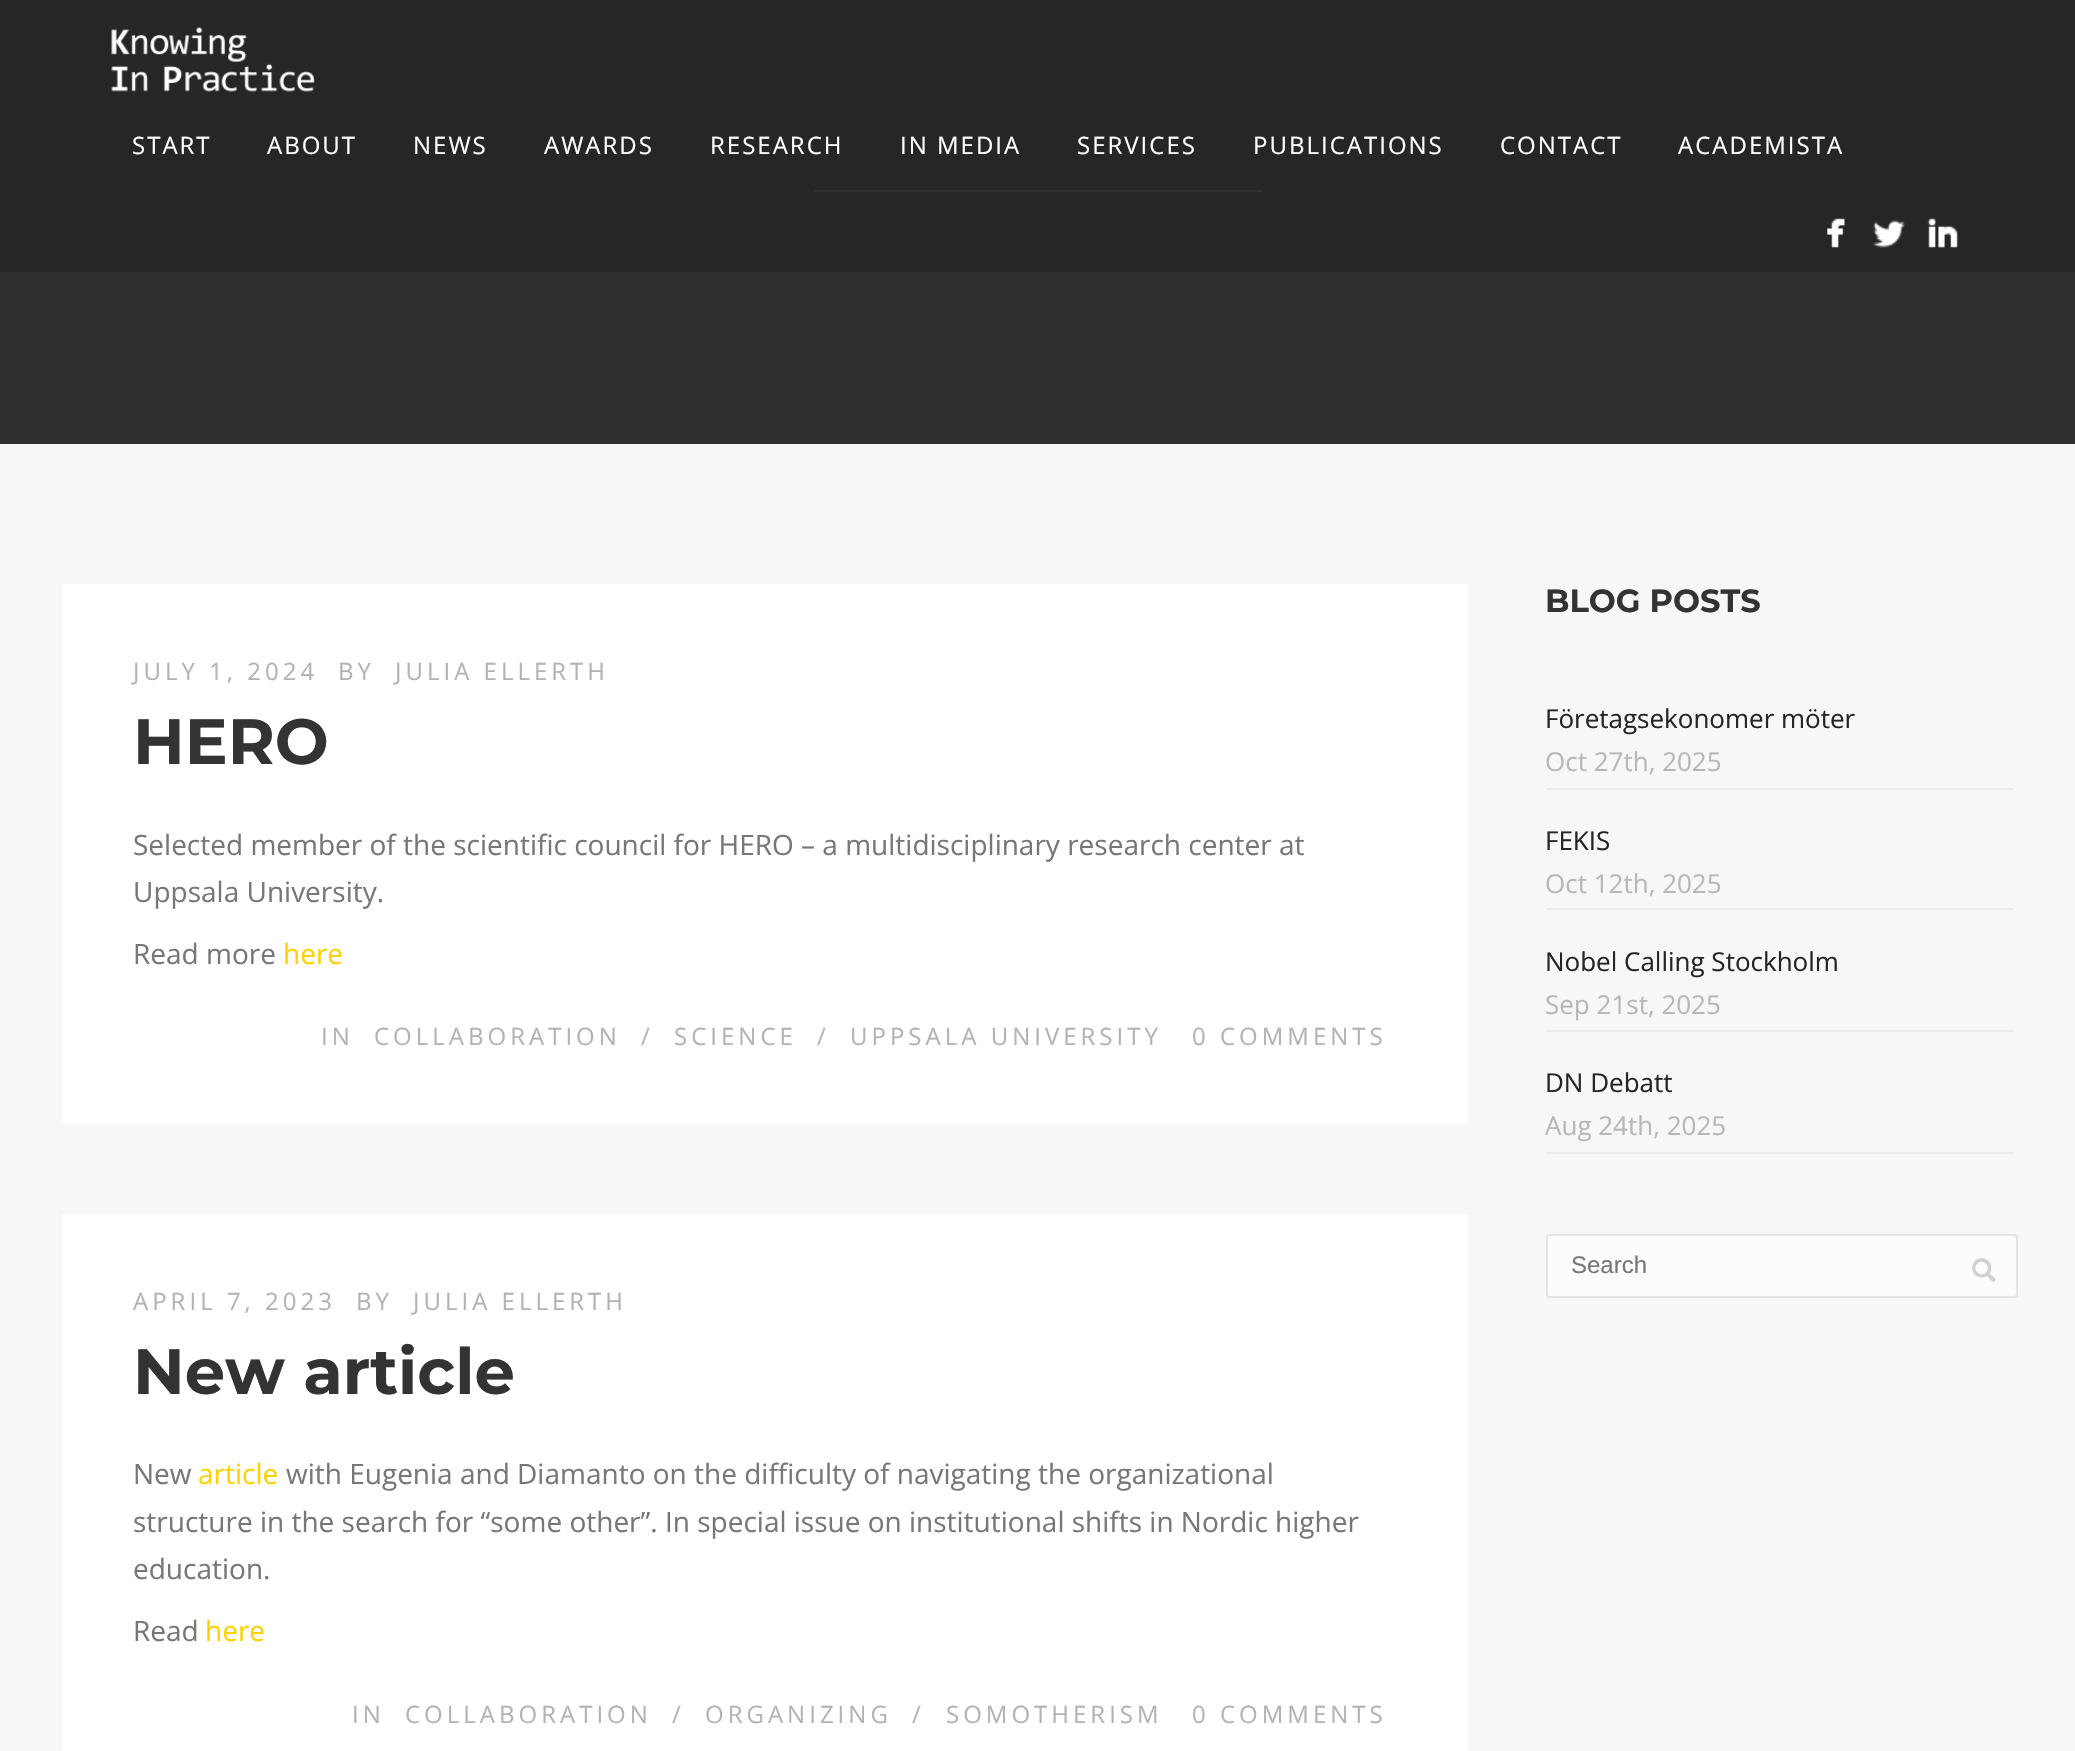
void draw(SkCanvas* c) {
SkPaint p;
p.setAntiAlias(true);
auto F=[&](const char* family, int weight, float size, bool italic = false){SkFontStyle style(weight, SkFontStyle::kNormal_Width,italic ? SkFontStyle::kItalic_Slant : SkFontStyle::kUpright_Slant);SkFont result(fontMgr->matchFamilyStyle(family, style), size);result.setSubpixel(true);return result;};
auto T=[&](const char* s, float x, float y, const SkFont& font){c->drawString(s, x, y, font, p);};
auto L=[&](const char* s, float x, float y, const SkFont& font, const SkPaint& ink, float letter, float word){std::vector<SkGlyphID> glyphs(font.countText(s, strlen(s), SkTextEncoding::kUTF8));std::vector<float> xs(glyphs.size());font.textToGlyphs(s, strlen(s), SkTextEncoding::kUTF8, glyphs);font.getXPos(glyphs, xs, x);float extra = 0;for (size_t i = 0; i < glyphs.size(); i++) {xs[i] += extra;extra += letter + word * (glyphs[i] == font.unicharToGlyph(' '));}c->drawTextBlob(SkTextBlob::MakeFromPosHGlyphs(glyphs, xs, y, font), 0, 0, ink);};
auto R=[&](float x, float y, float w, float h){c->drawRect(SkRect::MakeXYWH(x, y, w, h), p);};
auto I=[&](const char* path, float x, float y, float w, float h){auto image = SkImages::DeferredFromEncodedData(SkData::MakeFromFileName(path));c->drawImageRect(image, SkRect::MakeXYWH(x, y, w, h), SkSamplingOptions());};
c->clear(0xfff7f7f7);
p.setColor(0xff303030);
R(0,272,2075,172);
p.setColor(0xff262626);
R(0,0,2075,272);
I("1.png",111,27,204,65);
auto f1 = F("Open Sans",400,24);
p.setColor(0xffffffff);
L("START",132,154,f1,p,2,0);
L("ABOUT",267,154,f1,p,2,0);
L("NEWS",413,154,f1,p,2,0);
L("AWARDS",544,154,f1,p,2,0);
L("RESEARCH",710,154,f1,p,2,0);
L("IN MEDIA",900,154,f1,p,2,0);
L("SERVICES",1077,154,f1,p,2,0);
L("PUBLICATIONS",1253,154,f1,p,2,0);
L("CONTACT",1500,154,f1,p,2,0);
L("ACADEMISTA",1678,154,f1,p,2,0);
I("2.png",1827,218,18,30);
I("3.png",1873,220,32,28);
I("4.png",1927,218,31,30);
p.setColor(0xff303030);
R(814,190,448,2);
p.setColor(0xffffffff);
R(62,584,1406,540);
p.setColor(0xffb3b3b1);
L("JULY 1, 2024",133,680,f1,p,4,0);
L("BY",338,680,f1,p,4,0);
L("JULIA ELLERTH",395,680,f1,p,4,0);
auto f2 = F("Montserrat",700,64);
p.setColor(0xff333332);
T("HERO",133,764,f2);
auto f3 = F("Open Sans",400,28);
p.setColor(0xff777777);
T("Selected member of the scientific council for HERO – a multidisciplinary research center at",133,855,f3);
T("Uppsala University.",133,902,f3);
T("Read more",133,964,f3);
p.setColor(0xfffdd200);
T("here",283,964,f3);
p.setColor(0xffb3b3b1);
L("IN",321,1045,f1,p,4,0);
L("COLLABORATION",374,1045,f1,p,4,0);
L("/",641,1045,f1,p,4,0);
L("SCIENCE",674,1045,f1,p,4,0);
L("/",817,1045,f1,p,4,0);
L("UPPSALA UNIVERSITY",850,1045,f1,p,4,0);
L("0 COMMENTS",1192,1045,f1,p,4,0);
p.setColor(0xffffffff);
R(62,1214,1406,537);
p.setColor(0xffb3b3b1);
L("APRIL 7, 2023",133,1310,f1,p,4,0);
L("BY",356,1310,f1,p,4,0);
L("JULIA ELLERTH",413,1310,f1,p,4,0);
p.setColor(0xff333332);
T("New article",133,1394,f2);
p.setColor(0xff777777);
T("New",133,1484,f3);
p.setColor(0xfffdd200);
T("article",198,1484,f3);
p.setColor(0xff777777);
T("with Eugenia and Diamanto on the difficulty of navigating the organizational",286,1484,f3);
T("structure in the search for “some other”. In special issue on institutional shifts in Nordic higher",133,1532,f3);
T("education.",133,1579,f3);
T("Read",133,1641,f3);
p.setColor(0xfffdd200);
T("here",205,1641,f3);
p.setColor(0xffb3b3b1);
L("IN",352,1723,f1,p,4,0);
L("COLLABORATION",405,1723,f1,p,4,0);
L("/",672,1723,f1,p,4,0);
L("ORGANIZING",705,1723,f1,p,4,0);
L("/",912,1723,f1,p,4,0);
L("SOMOTHERISM",946,1723,f1,p,4,0);
L("0 COMMENTS",1192,1723,f1,p,4,0);
auto f4 = F("Montserrat",700,32);
p.setColor(0xff333332);
T("BLOG POSTS",1545,612,f4);
p.setColor(0xffebebeb);
R(1546,788,468,2);
auto f5 = F("Open Sans",400,26);
p.setColor(0xff252525);
T("Företagsekonomer möter",1545,728,f5);
p.setColor(0xffb7b7b7);
T("Oct 27th, 2025",1545,771,f5);
p.setColor(0xffebebeb);
R(1546,908,468,2);
p.setColor(0xff252525);
T("FEKIS",1545,850,f5);
p.setColor(0xffb7b7b7);
T("Oct 12th, 2025",1545,893,f5);
p.setColor(0xffebebeb);
R(1546,1030,468,2);
p.setColor(0xff252525);
T("Nobel Calling Stockholm",1545,971,f5);
p.setColor(0xffb7b7b7);
T("Sep 21st, 2025",1545,1014,f5);
p.setColor(0xffebebeb);
R(1546,1152,468,2);
p.setColor(0xff252525);
T("DN Debatt",1545,1092,f5);
p.setColor(0xffb7b7b7);
T("Aug 24th, 2025",1545,1135,f5);
p.setColor(0xfffcfcfc);
c->drawRoundRect(SkRect::MakeXYWH(1547,1235,470,62),3,3,p);
p.setStroke(true);
p.setStrokeWidth(2);
p.setColor(0xffe3e3e3);
c->drawRoundRect(SkRect::MakeXYWH(1547,1235,470,62),3,3,p);
auto f6 = F("Liberation Sans",400,24);
p.setStroke(false);
p.setColor(0xff777777);
T("Search",1571,1273,f6);
I("5.png",1972,1258,24,24);
}
